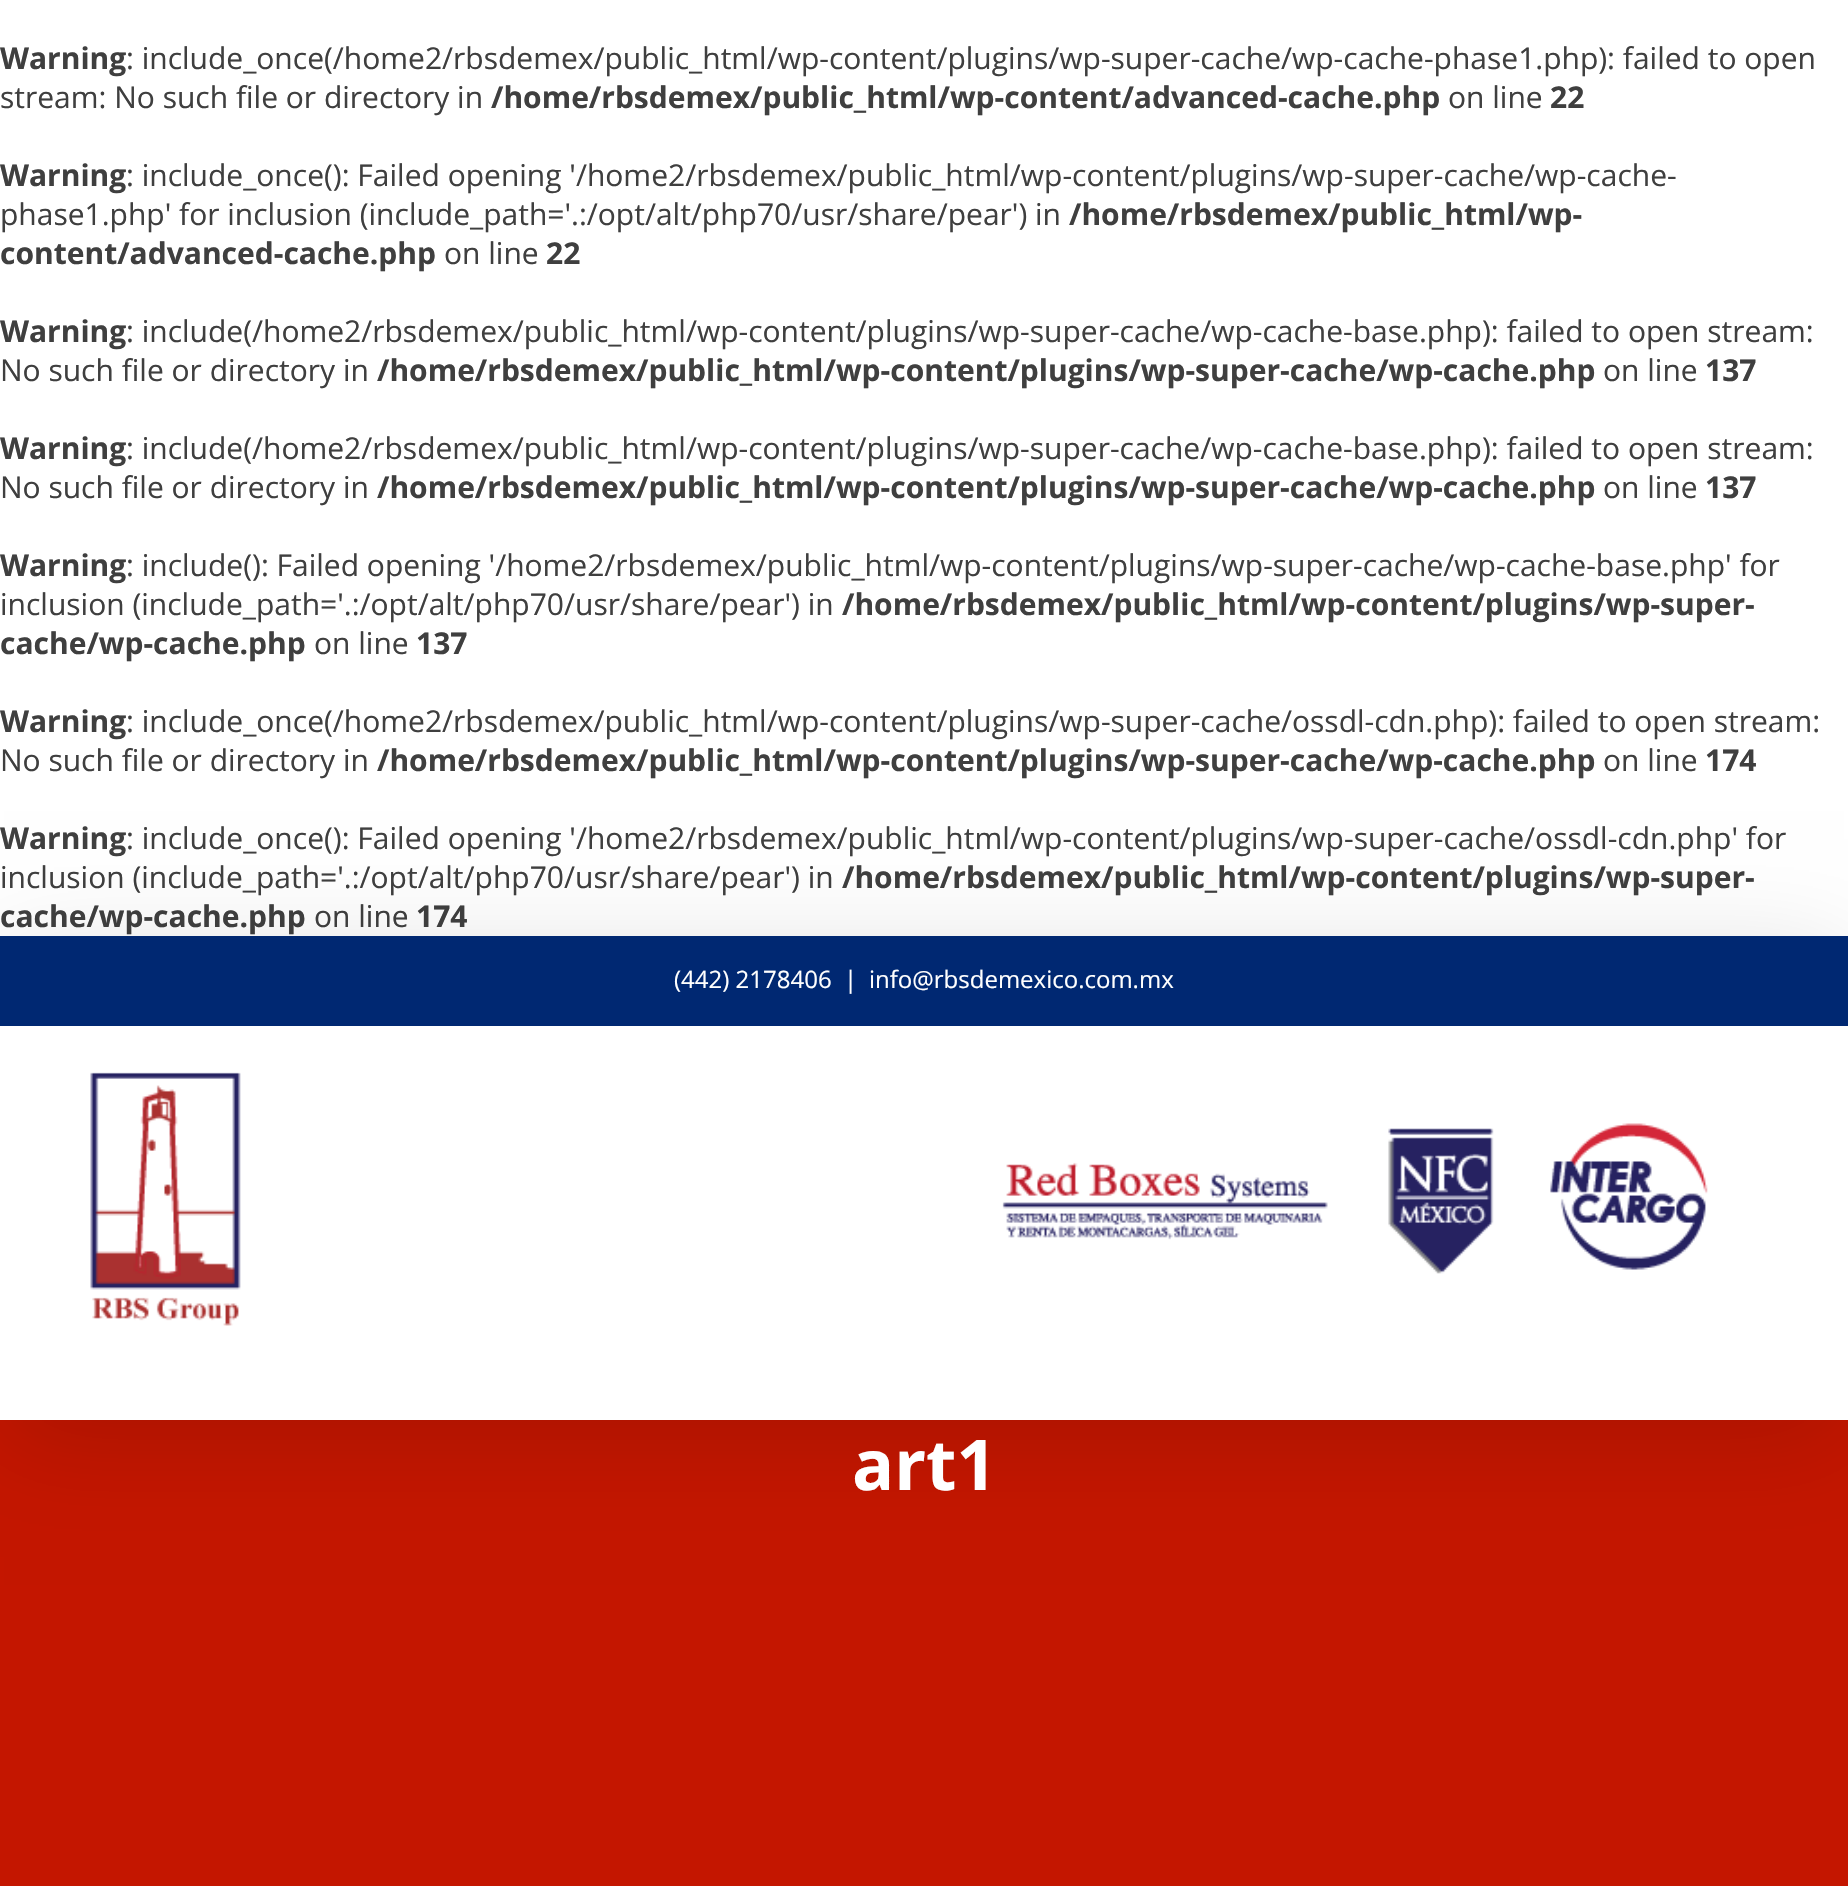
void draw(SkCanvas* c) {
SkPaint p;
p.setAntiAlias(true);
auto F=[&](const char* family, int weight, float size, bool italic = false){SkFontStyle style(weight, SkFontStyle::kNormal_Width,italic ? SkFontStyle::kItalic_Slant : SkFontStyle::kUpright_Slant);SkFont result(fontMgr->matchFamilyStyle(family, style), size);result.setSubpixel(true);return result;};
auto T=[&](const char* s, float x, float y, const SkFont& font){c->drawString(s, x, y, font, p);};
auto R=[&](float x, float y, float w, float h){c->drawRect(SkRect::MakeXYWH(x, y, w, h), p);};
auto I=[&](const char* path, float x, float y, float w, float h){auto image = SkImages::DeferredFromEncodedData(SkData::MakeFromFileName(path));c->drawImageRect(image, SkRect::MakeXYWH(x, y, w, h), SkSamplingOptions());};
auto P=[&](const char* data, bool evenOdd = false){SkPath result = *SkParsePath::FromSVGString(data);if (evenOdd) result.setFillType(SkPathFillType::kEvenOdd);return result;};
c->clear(0xffffffff);
auto f1 = F("Open Sans",700,30);
p.setColor(0xff3f3f3f);
T("Warning",0,69,f1);
auto f2 = F("Open Sans",400,30);
T(": include_once(/home2/rbsdemex/public_html/wp-content/plugins/wp-super-cache/wp-cache-phase1.php): failed to open",126,69,f2);
T("stream: No such file or directory in",0,108,f2);
T("/home/rbsdemex/public_html/wp-content/advanced-cache.php",491,108,f1);
T("on line",1448,108,f2);
T("22",1550,108,f1);
T("Warning",0,186,f1);
T(": include_once(): Failed opening '/home2/rbsdemex/public_html/wp-content/plugins/wp-super-cache/wp-cache-",126,186,f2);
T("phase1.php' for inclusion (include_path='.:/opt/alt/php70/usr/share/pear') in",0,225,f2);
T("/home/rbsdemex/public_html/wp-",1069,225,f1);
T("content/advanced-cache.php",0,264,f1);
T("on line",444,264,f2);
T("22",546,264,f1);
T("Warning",0,342,f1);
T(": include(/home2/rbsdemex/public_html/wp-content/plugins/wp-super-cache/wp-cache-base.php): failed to open stream:",126,342,f2);
T("No such file or directory in",0,381,f2);
T("/home/rbsdemex/public_html/wp-content/plugins/wp-super-cache/wp-cache.php",377,381,f1);
T("on line",1603,381,f2);
T("137",1705,381,f1);
T("Warning",0,459,f1);
T(": include(/home2/rbsdemex/public_html/wp-content/plugins/wp-super-cache/wp-cache-base.php): failed to open stream:",126,459,f2);
T("No such file or directory in",0,498,f2);
T("/home/rbsdemex/public_html/wp-content/plugins/wp-super-cache/wp-cache.php",377,498,f1);
T("on line",1603,498,f2);
T("137",1705,498,f1);
T("Warning",0,576,f1);
T(": include(): Failed opening '/home2/rbsdemex/public_html/wp-content/plugins/wp-super-cache/wp-cache-base.php' for",126,576,f2);
T("inclusion (include_path='.:/opt/alt/php70/usr/share/pear') in",0,615,f2);
T("/home/rbsdemex/public_html/wp-content/plugins/wp-super-",842,615,f1);
T("cache/wp-cache.php",0,654,f1);
T("on line",314,654,f2);
T("137",416,654,f1);
T("Warning",0,732,f1);
T(": include_once(/home2/rbsdemex/public_html/wp-content/plugins/wp-super-cache/ossdl-cdn.php): failed to open stream:",126,732,f2);
T("No such file or directory in",0,771,f2);
T("/home/rbsdemex/public_html/wp-content/plugins/wp-super-cache/wp-cache.php",377,771,f1);
T("on line",1603,771,f2);
T("174",1705,771,f1);
T("Warning",0,849,f1);
T(": include_once(): Failed opening '/home2/rbsdemex/public_html/wp-content/plugins/wp-super-cache/ossdl-cdn.php' for",126,849,f2);
T("inclusion (include_path='.:/opt/alt/php70/usr/share/pear') in",0,888,f2);
T("/home/rbsdemex/public_html/wp-content/plugins/wp-super-",842,888,f1);
T("cache/wp-cache.php",0,927,f1);
T("on line",314,927,f2);
T("174",416,927,f1);
p.setColor(0xffc41600);
R(0,1420,1848,466);
c->save();
c->clipPath(P("M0 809h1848v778h-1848zm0 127h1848v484h-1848z",true),true);
p.setColor(0x24000000);
p.setMaskFilter(SkMaskFilter::MakeBlur(kNormal_SkBlurStyle, 50));
c->drawRect(SkRect::MakeXYWH(4,960,1840,476),p);
p.setMaskFilter(nullptr);
c->restore();
p.setColor(0xff002872);
R(0,936,1848,90);
auto f3 = F("Open Sans",400,24);
p.setColor(0xffffffff);
T("(442) 2178406",674,988,f3);
T("|",844,988,f3);
T("info@rbsdemexico.com.mx",869,988,f3);
I("1.png",90,1072,1618,254);
auto f4 = F("Open Sans",700,70);
T("art1",852,1490,f4);
}
